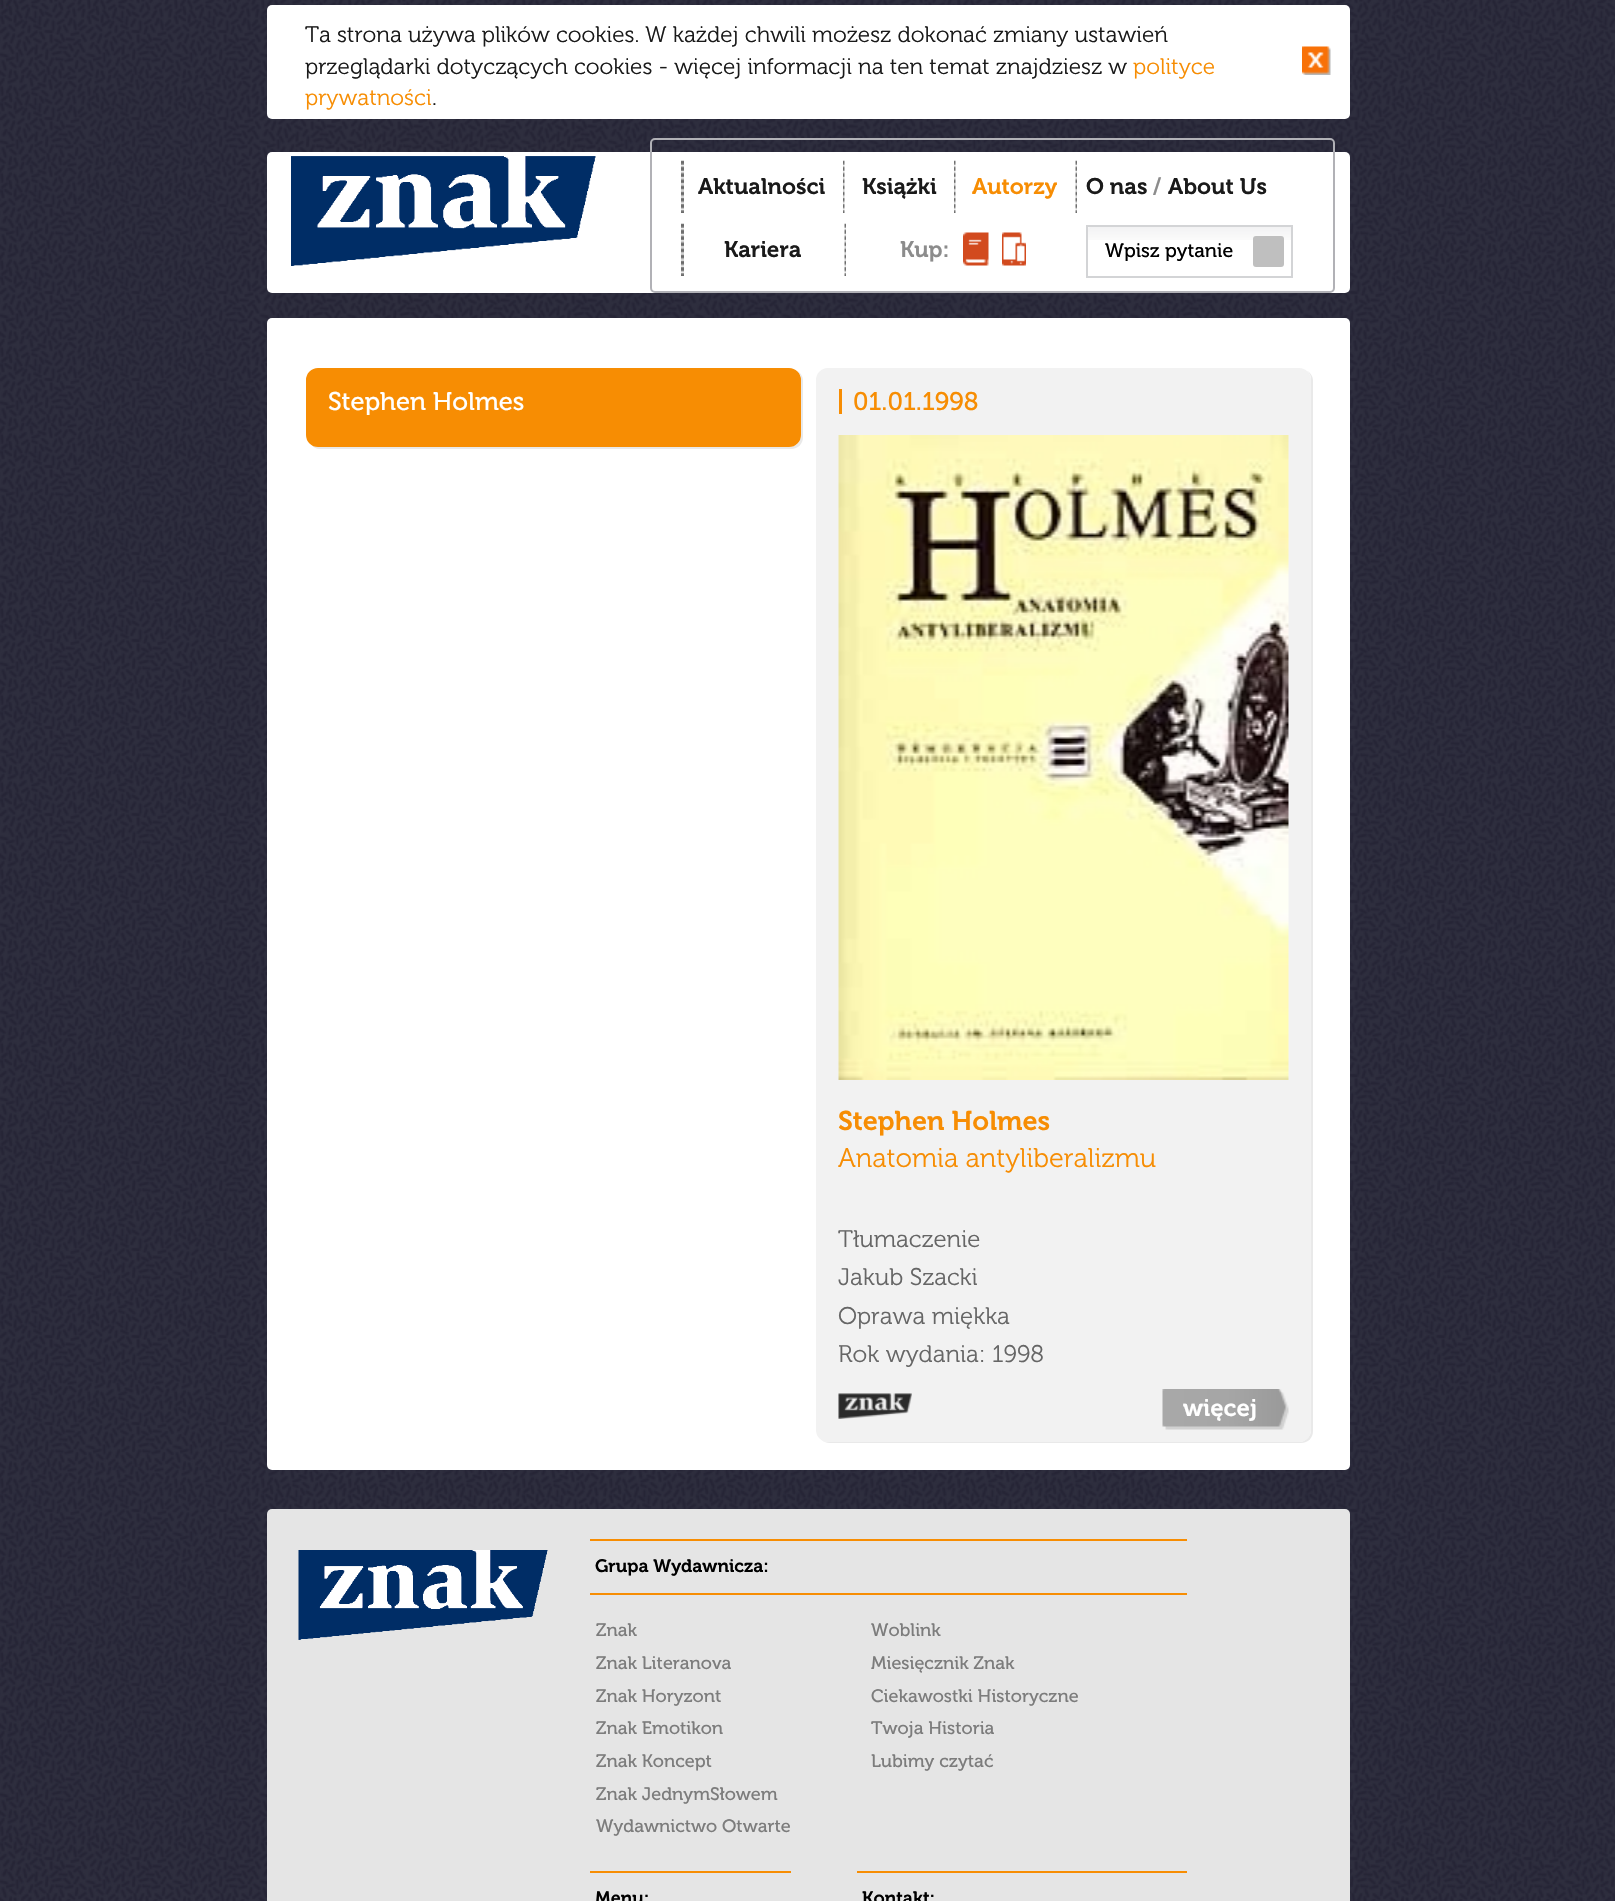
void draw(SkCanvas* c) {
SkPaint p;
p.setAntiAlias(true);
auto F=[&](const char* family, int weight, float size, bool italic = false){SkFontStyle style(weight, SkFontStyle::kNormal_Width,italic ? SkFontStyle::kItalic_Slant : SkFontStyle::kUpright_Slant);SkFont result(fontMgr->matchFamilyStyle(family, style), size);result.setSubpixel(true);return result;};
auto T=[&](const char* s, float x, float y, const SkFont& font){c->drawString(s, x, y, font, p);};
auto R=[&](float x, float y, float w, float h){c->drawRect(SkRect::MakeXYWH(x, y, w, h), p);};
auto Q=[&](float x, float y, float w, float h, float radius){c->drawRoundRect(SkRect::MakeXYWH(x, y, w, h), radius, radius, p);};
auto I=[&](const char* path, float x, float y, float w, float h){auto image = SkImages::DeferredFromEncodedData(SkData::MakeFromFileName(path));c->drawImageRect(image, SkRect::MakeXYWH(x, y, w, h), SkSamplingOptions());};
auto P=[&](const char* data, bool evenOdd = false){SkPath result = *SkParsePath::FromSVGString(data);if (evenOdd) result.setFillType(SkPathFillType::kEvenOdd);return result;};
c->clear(0xffffffff);
I("1.png",0,0,1615,1901);
p.setColor(0xffffffff);
Q(267,5,1083,114,5);
auto f1 = F("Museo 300",300,22.5);
p.setColor(0xff1a1a1a);
T("Ta strona używa plików cookies. W każdej chwili możesz dokonać zmiany ustawień",305,42,f1);
T("przeglądarki dotyczących cookies - więcej informacji na ten temat znajdziesz w",305,74,f1);
p.setColor(0xfff78d03);
T("polityce",1133,74,f1);
I("2.png",1302,46,29,29);
T("prywatności",305,105,f1);
p.setColor(0xff1a1a1a);
T(".",432,105,f1);
p.setColor(0xffffffff);
Q(267,152,1083,141,5);
I("3.png",291,156,305,110);
p.setStroke(true);
p.setStrokeWidth(2);
p.setColor(0xffb1b1b6);
c->drawRoundRect(SkRect::MakeXYWH(651,139,683,153),4,4,p);
I("4.png",681,160,3,53);
auto f2 = F("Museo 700",600,22.5);
p.setStroke(false);
p.setColor(0xff1a1a1a);
T("Aktualności",698,194,f2);
I("5.png",843,160,2,53);
T("Książki",862,194,f2);
I("5.png",954,160,2,53);
p.setColor(0xfff78d03);
T("Autorzy",972,194,f2);
I("6.png",1075,160,2,53);
p.setColor(0xff1a1a1a);
T("O nas",1086,194,f2);
p.setColor(0xff8c8c8c);
T("/",1153,194,f2);
p.setColor(0xff1a1a1a);
T("About Us",1168,194,f2);
I("7.png",681,223,3,53);
T("Kariera",724,257,f2);
I("6.png",844,223,2,53);
p.setColor(0xff8c8c8c);
T("Kup:",900,257,f2);
I("8.png",963,232,26,34);
I("9.png",1002,232,24,34);
I("10.png",1088,227,203,13);
p.setStroke(true);
p.setColor(0xffd3d4d6);
c->drawRect(SkRect::MakeXYWH(1087,226,205,51),p);
auto f3 = F("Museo",400,19.5);
p.setStroke(false);
p.setColor(0xff000000);
T("Wpisz pytanie",1105,257,f3);
p.setColor(0xffbfbfbf);
Q(1253,236,31,31,3);
p.setColor(0xffffffff);
Q(267,318,1083,1152,5);
p.setColor(0xffe9e9e9);
c->drawPath(P("M311 444c2 3 5 5 9 5h471c7 0 12-5 12-12v-56c0-4-2-8-6-10c3 2 4 5 4 9v55c0 7-5 12-12 12h-471c-3 0-5-1-7-3z"),p);
p.setColor(0xfff78d03);
c->drawRoundRect(SkRect::MakeXYWH(307,369,493,77),11,11,p);
p.setStroke(true);
c->drawRoundRect(SkRect::MakeXYWH(307,369,493,77),11,11,p);
auto f4 = F("Museo",400,25.5);
p.setStroke(false);
p.setColor(0xffffffff);
T("Stephen Holmes",328,410,f4);
p.setColor(0xffe9e9e9);
c->drawPath(P("M822 1440c2 2 5 3 8 3h471c7 0 12-5 12-12v-1050c0-4-2-8-6-10c3 2 4 5 4 9v1050c0 6-5 12-12 12h-471c-2 0-4-1-6-2z"),p);
p.setColor(0xfff2f2f2);
c->drawRoundRect(SkRect::MakeXYWH(817,369,493,1072),11,11,p);
p.setStroke(true);
c->drawRoundRect(SkRect::MakeXYWH(817,369,493,1072),11,11,p);
p.setStroke(false);
p.setColor(0xfff78d03);
R(839,389,3,25);
T("01.01.1998",853,410,f4);
I("11.png",838,435,451,645);
auto f5 = F("Museo 700",600,27);
T("Stephen Holmes",838,1130,f5);
auto f6 = F("Museo 300",300,27);
T("Anatomia antyliberalizmu",838,1167,f6);
auto f7 = F("Museo 300",300,24);
p.setColor(0xff666666);
T("Tłumaczenie",838,1247,f7);
T("Jakub Szacki",838,1285,f7);
T("Oprawa miękka",838,1324,f7);
T("Rok wydania: 1998",838,1362,f7);
I("12.png",838,1393,74,26);
I("13.png",1162,1389,127,41);
auto f8 = F("Museo 700",600,24);
p.setColor(0xffffffff);
T("więcej",1183,1416,f8);
p.setColor(0xffe5e5e5);
Q(267,1509,1083,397,5);
I("14.png",298,1550,250,90);
p.setColor(0xfff78d03);
R(590,1539,597,2);
R(590,1593,597,2);
auto f9 = F("Museo 700",600,18);
p.setColor(0xff000000);
T("Grupa Wydawnicza:",595,1572,f9);
auto f10 = F("Museo",400,18);
p.setColor(0xff7c7c7c);
T("Znak",596,1636,f10);
T("Znak Literanova",596,1669,f10);
T("Znak Horyzont",596,1702,f10);
T("Znak Emotikon",596,1734,f10);
T("Znak Koncept",596,1767,f10);
T("Znak JednymSłowem",596,1800,f10);
T("Wydawnictwo Otwarte",596,1832,f10);
T("Woblink",871,1636,f10);
T("Miesięcznik Znak",871,1669,f10);
T("Ciekawostki Historyczne",871,1702,f10);
T("Twoja Historia",871,1734,f10);
T("Lubimy czytać",871,1767,f10);
p.setColor(0xfff78d03);
R(590,1871,201,2);
p.setColor(0xff000000);
T("Menu:",595,1904,f9);
p.setColor(0xfff78d03);
R(857,1871,330,2);
p.setColor(0xff000000);
T("Kontakt:",862,1904,f9);
}
